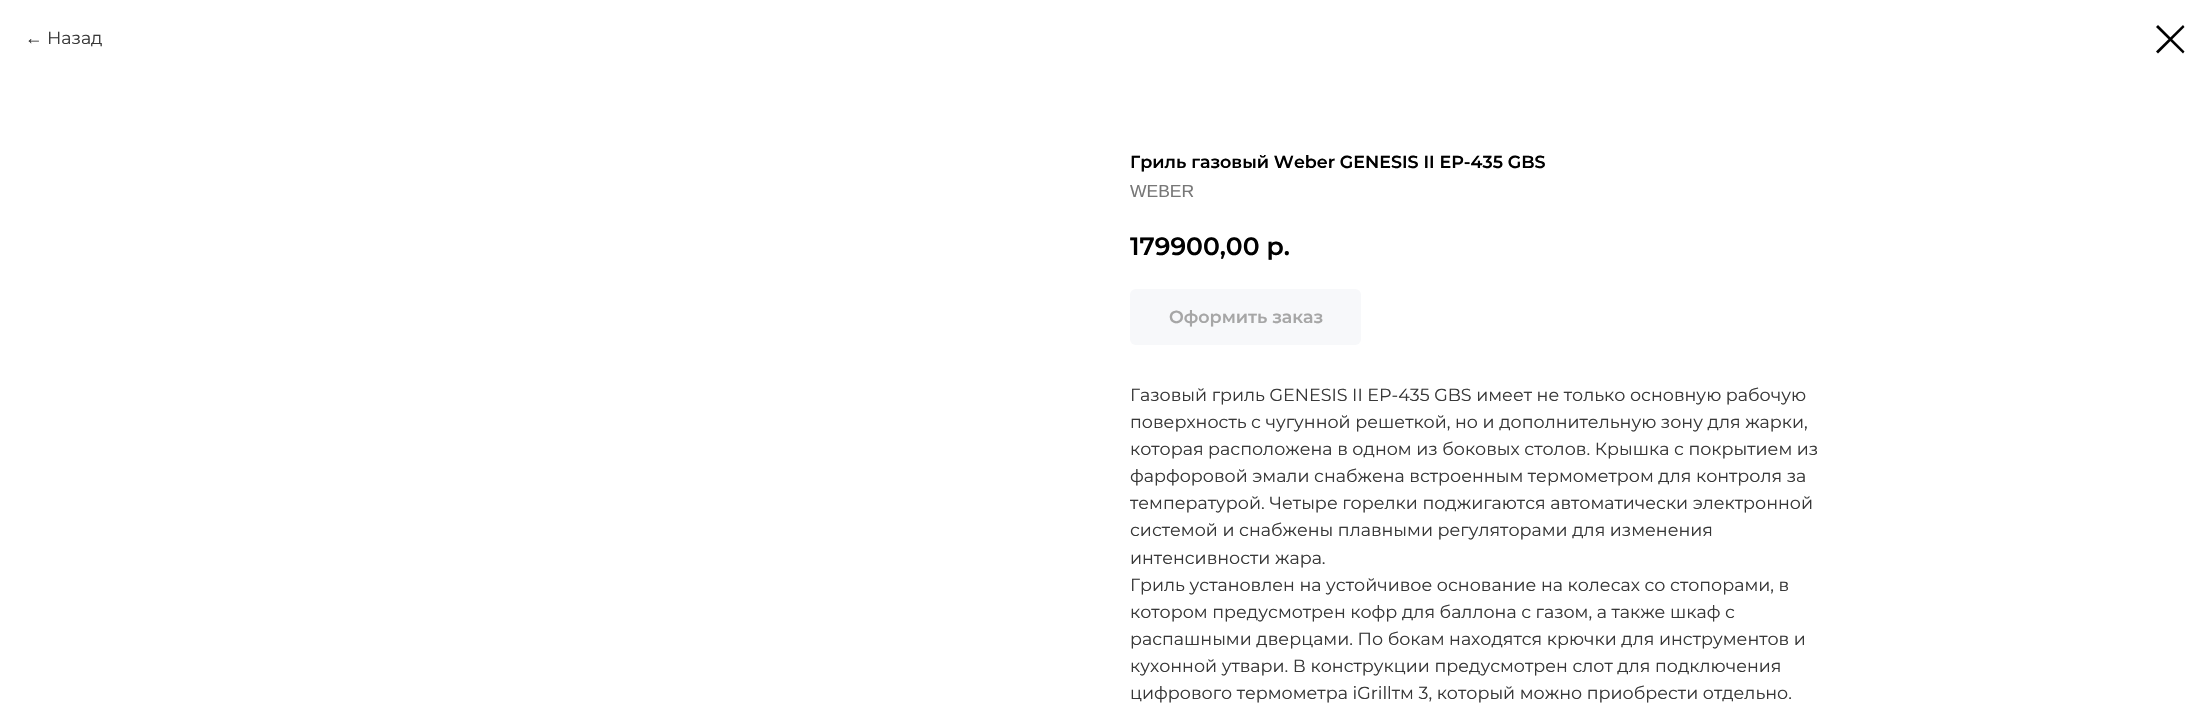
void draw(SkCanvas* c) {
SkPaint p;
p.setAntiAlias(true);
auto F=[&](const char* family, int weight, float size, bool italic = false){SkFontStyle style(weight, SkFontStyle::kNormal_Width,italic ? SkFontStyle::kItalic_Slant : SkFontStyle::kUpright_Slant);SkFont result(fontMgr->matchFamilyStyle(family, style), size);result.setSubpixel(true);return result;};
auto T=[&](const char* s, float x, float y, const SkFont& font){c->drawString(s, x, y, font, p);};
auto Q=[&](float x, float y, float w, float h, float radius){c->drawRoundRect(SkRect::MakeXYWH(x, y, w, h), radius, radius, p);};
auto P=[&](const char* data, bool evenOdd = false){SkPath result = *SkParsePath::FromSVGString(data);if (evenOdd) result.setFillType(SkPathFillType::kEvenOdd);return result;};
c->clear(0xffffffff);
auto f1 = F("Liberation Sans",400,17.5);
p.setColor(0xff383838);
T("←",25,44,f1);
auto f2 = F("Montserrat",400,17.5);
T("Назад",47,44,f2);
p.setColor(0xff000000);
c->drawPath(P("M2156 27l2-2l26.5 26.5l-1.5 2z",true),p);
c->drawPath(P("M2183 25l1.5 2l-26.5 26.5l-2-2z",true),p);
auto f3 = F("Montserrat",600,17.5);
T("Гриль газовый Weber GENESIS II EP-435 GBS",1130,168,f3);
p.setColor(0xff777777);
T("WEBER",1130,197,f1);
auto f4 = F("Montserrat",600,25);
p.setColor(0xff000000);
T("179900,00 р.",1130,255,f4);
p.setColor(0xfff7f8fa);
Q(1130,289,231,56,6);
p.setColor(0xffa6a6a6);
T("Оформить заказ",1169,323,f3);
p.setColor(0xff383838);
T("Газовый гриль GENESIS II EP-435 GBS имеет не только основную рабочую",1130,401,f2);
T("поверхность с чугунной решеткой, но и дополнительную зону для жарки,",1130,428,f2);
T("которая расположена в одном из боковых столов. Крышка с покрытием из",1130,455,f2);
T("фарфоровой эмали снабжена встроенным термометром для контроля за",1130,482,f2);
T("температурой. Четыре горелки поджигаются автоматически электронной",1130,509,f2);
T("системой и снабжены плавными регуляторами для изменения",1130,536,f2);
T("интенсивности жара.",1130,564,f2);
T("Гриль установлен на устойчивое основание на колесах со стопорами, в",1130,591,f2);
T("котором предусмотрен кофр для баллона с газом, а также шкаф с",1130,618,f2);
T("распашными дверцами. По бокам находятся крючки для инструментов и",1130,645,f2);
T("кухонной утвари. В конструкции предусмотрен слот для подключения",1130,672,f2);
T("цифрового термометра iGrillтм 3, который можно приобрести отдельно.",1130,699,f2);
}
